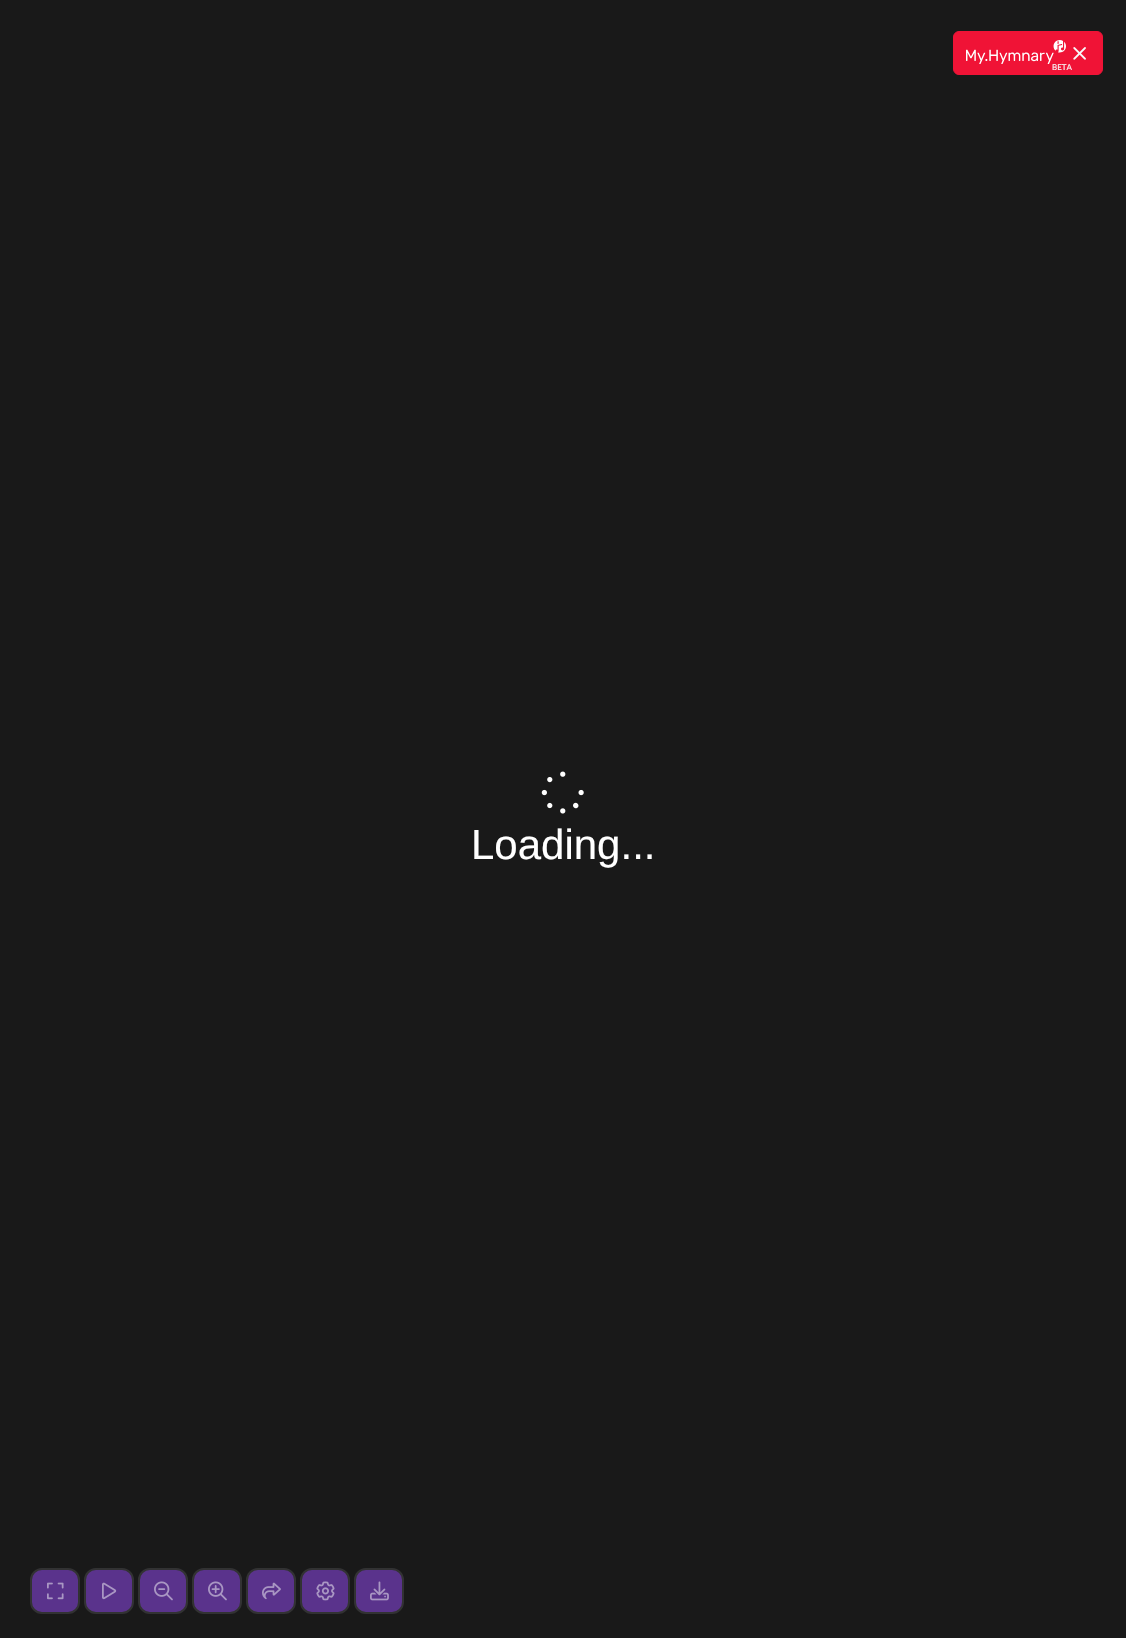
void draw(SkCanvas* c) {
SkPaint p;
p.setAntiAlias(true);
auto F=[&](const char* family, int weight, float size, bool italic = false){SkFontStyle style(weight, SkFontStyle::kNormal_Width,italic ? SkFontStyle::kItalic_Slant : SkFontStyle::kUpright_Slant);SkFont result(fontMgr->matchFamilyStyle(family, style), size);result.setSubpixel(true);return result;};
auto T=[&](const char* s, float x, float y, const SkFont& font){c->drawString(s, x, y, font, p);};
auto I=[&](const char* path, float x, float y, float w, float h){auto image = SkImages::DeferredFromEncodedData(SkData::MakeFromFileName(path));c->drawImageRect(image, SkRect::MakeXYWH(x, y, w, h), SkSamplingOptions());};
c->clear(0xff191919);
p.setColor(0xfff01336);
c->drawRoundRect(SkRect::MakeXYWH(953.5,31.5,149,43),5.5,5.5,p);
p.setStroke(true);
p.setStrokeWidth(1);
c->drawRoundRect(SkRect::MakeXYWH(953.5,31.5,149,43),5.5,5.5,p);
I("1.png",966,40,100,24);
I("2.png",1073,47,13,13);
auto f1 = F("Lato",400,8);
p.setStroke(false);
p.setColor(0xfff8f9fa);
T("BETA",1052,70,f1);
I("3.png",541,771,43,43);
auto f2 = F("Liberation Sans",400,42);
p.setColor(0xffffffff);
T("Loading...",471,859,f2);
p.setColor(0xff5a338c);
c->drawRoundRect(SkRect::MakeXYWH(31,1569,48,44),11,11,p);
p.setStroke(true);
p.setStrokeWidth(2);
p.setColor(0xff323233);
c->drawRoundRect(SkRect::MakeXYWH(31,1569,48,44),11,11,p);
I("4.png",47,1582,17,18);
p.setStroke(false);
p.setColor(0xff5a338c);
c->drawRoundRect(SkRect::MakeXYWH(85,1569,48,44),11,11,p);
p.setStroke(true);
p.setColor(0xff323233);
c->drawRoundRect(SkRect::MakeXYWH(85,1569,48,44),11,11,p);
I("5.png",102,1582,15,18);
p.setStroke(false);
p.setColor(0xff5a338c);
c->drawRoundRect(SkRect::MakeXYWH(139,1569,48,44),11,11,p);
p.setStroke(true);
p.setColor(0xff323233);
c->drawRoundRect(SkRect::MakeXYWH(139,1569,48,44),11,11,p);
I("6.png",154,1581,19,20);
p.setStroke(false);
p.setColor(0xff5a338c);
c->drawRoundRect(SkRect::MakeXYWH(193,1569,48,44),11,11,p);
p.setStroke(true);
p.setColor(0xff323233);
c->drawRoundRect(SkRect::MakeXYWH(193,1569,48,44),11,11,p);
I("7.png",208,1581,19,20);
p.setStroke(false);
p.setColor(0xff5a338c);
c->drawRoundRect(SkRect::MakeXYWH(247,1569,48,44),11,11,p);
p.setStroke(true);
p.setColor(0xff323233);
c->drawRoundRect(SkRect::MakeXYWH(247,1569,48,44),11,11,p);
I("8.png",262,1582,19,18);
p.setStroke(false);
p.setColor(0xff5a338c);
c->drawRoundRect(SkRect::MakeXYWH(301,1569,48,44),11,11,p);
p.setStroke(true);
p.setColor(0xff323233);
c->drawRoundRect(SkRect::MakeXYWH(301,1569,48,44),11,11,p);
I("9.png",316,1581,19,20);
p.setStroke(false);
p.setColor(0xff5a338c);
c->drawRoundRect(SkRect::MakeXYWH(355,1569,48,44),11,11,p);
p.setStroke(true);
p.setColor(0xff323233);
c->drawRoundRect(SkRect::MakeXYWH(355,1569,48,44),11,11,p);
I("10.png",370,1581,19,20);
}
